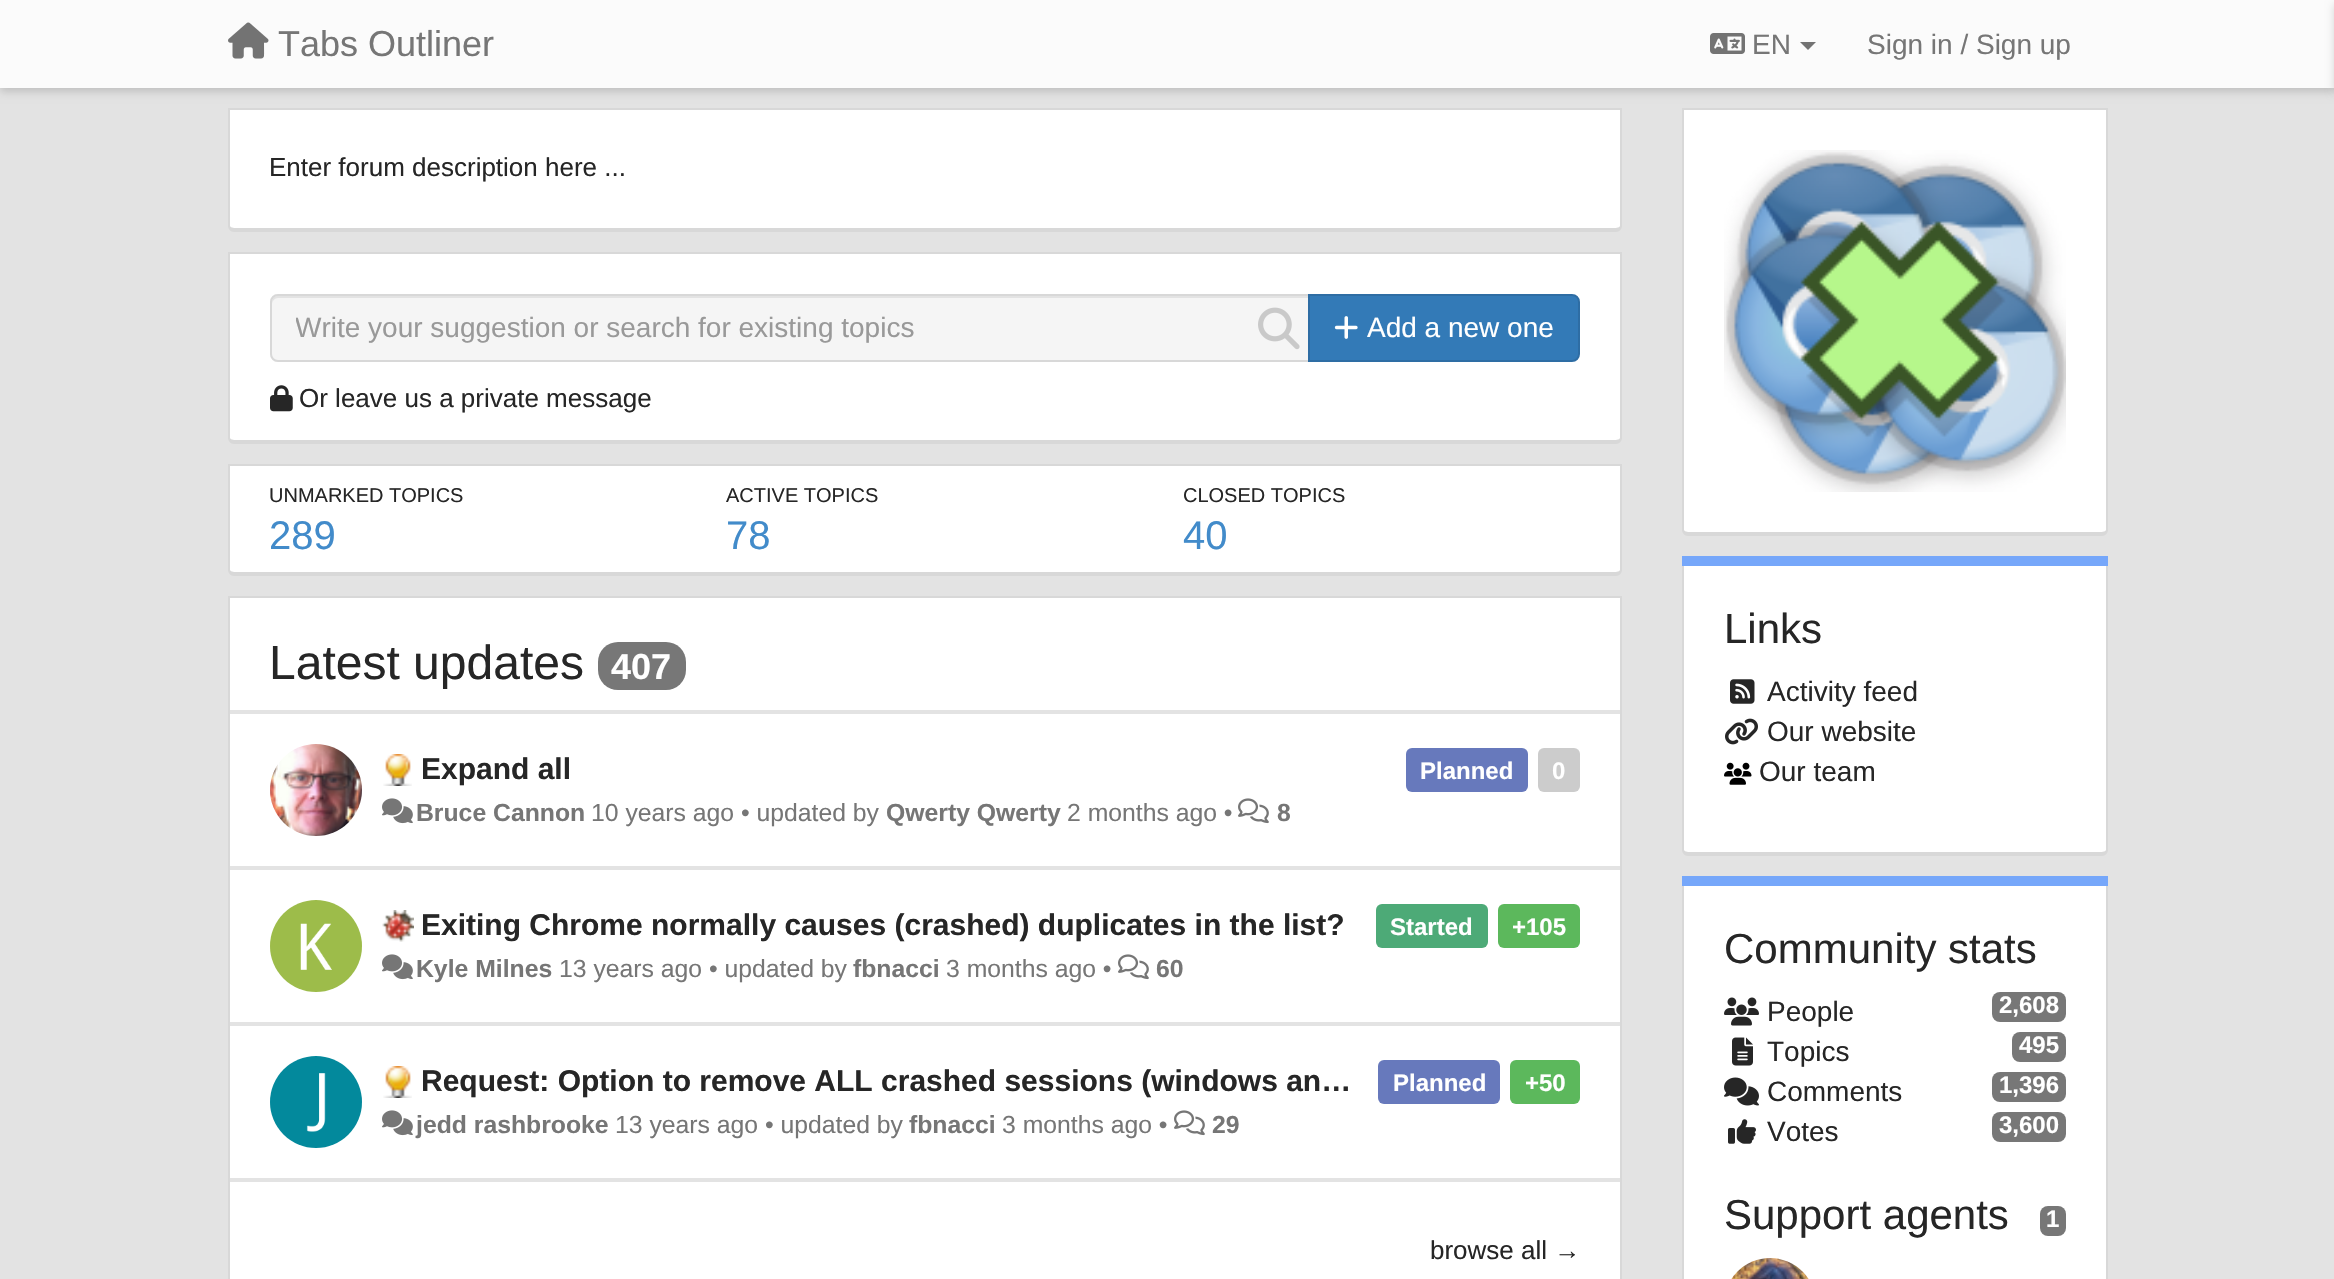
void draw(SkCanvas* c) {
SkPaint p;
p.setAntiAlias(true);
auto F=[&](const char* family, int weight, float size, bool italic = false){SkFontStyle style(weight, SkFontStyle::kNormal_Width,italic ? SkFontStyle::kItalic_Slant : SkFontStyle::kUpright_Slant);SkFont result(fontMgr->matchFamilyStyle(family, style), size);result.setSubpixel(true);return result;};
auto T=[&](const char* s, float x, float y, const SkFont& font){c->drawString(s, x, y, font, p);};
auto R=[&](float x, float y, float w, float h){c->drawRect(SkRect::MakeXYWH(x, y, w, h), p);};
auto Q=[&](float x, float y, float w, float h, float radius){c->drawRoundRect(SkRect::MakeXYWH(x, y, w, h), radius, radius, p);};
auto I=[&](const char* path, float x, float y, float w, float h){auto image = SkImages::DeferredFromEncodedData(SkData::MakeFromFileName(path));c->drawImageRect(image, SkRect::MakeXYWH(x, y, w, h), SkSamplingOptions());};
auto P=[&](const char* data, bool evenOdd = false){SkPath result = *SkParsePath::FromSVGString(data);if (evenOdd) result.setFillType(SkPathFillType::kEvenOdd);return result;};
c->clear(0xffe3e3e3);
p.setColor(0x26000000);
p.setMaskFilter(SkMaskFilter::MakeBlur(kNormal_SkBlurStyle, 4));
c->drawRect(SkRect::MakeXYWH(0,4,2334,88),p);
p.setMaskFilter(nullptr);
p.setColor(0xfffbfbfb);
R(0,0,2334,88);
I("1.png",228,22,41,37);
auto f1 = F("Liberation Sans",400,36);
p.setColor(0xff767676);
T("Tabs Outliner",278,56,f1);
I("2.png",1710,33,35,21);
auto f2 = F("Liberation Sans",400,28);
T("EN",1752,54,f2);
p.setColor(0xff737373);
c->drawPath(P("M1800 42h16l-8 8z"),p);
p.setColor(0xff767676);
T("Sign in / Sign up",1867,54,f2);
p.setColor(0x26000000);
p.setMaskFilter(SkMaskFilter::MakeBlur(kNormal_SkBlurStyle, 4));
c->drawRect(SkRect::MakeXYWH(2334,4,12,88),p);
p.setMaskFilter(nullptr);
p.setColor(0xffd8d8d8);
R(228,108,1394,2);
p.setColor(0xffffffff);
c->drawPath(P("M230 110h1390v116c0 1-2 2-4 2h-1382c-2 0-4-1-4-2z"),p);
p.setColor(0xffd8d8d8);
c->drawPath(P("M228 110h1394v116c0 3-3 6-6 6h-1382c-3 0-6-3-6-6zm2 0h1390v116c0 1-2 2-4 2h-1382c-2 0-4-1-4-2z",true),p);
auto f3 = F("Liberation Sans",400,26);
p.setColor(0xff262626);
T("Enter forum description here ...",269,176,f3);
p.setColor(0xffd8d8d8);
R(228,252,1394,2);
p.setColor(0xffffffff);
c->drawPath(P("M230 254h1390v184c0 1-2 2-4 2h-1382c-2 0-4-1-4-2z"),p);
p.setColor(0xffd8d8d8);
c->drawPath(P("M228 254h1394v184c0 3-3 6-6 6h-1382c-3 0-6-3-6-6zm2 0h1390v184c0 1-2 2-4 2h-1382c-2 0-4-1-4-2z",true),p);
p.setColor(0xfff5f5f5);
c->drawPath(P("M278 294h1032v68h-1032c-4.5 0-8-3.5-8-8v-52c0-4.5 3.5-8 8-8z"),p);
p.setColor(0xffe3e3e3);
c->drawPath(P("M278 298h1030v-2h-1030c-5 0-6 4-6 8c0-3 3-6 6-6z"),p);
p.setStroke(true);
p.setStrokeWidth(2);
p.setColor(0xffd8d8d8);
c->drawPath(P("M278 295h1031v66h-1031c-4 0-7-3-7-7v-52c0-4 3-7 7-7z"),p);
c->save();
c->clipRect(SkRect::MakeXYWH(296,312,952,32));
p.setStroke(false);
p.setColor(0xff999999);
T("Write your suggestion or search for existing topics",295,337,f2);
c->restore();
I("3.png",1258,307,42,43);
p.setColor(0xff337ab7);
c->drawPath(P("M1309 295h263c4 0 7 3 7 7v52c0 4-3 7-7 7h-263z"),p);
p.setStroke(true);
p.setColor(0xff2e6da4);
c->drawPath(P("M1309 295h263c4 0 7 3 7 7v52c0 4-3 7-7 7h-263z"),p);
I("4.png",1334,316,24,23);
p.setStroke(false);
p.setColor(0xffffffff);
T("Add a new one",1367,337,f2);
I("5.png",270,385,23,27);
p.setColor(0xff262626);
T("Or leave us a private message",299,407,f3);
p.setColor(0xffd8d8d8);
R(228,464,1394,2);
p.setColor(0xffffffff);
c->drawPath(P("M230 466h1390v104c0 1-2 2-4 2h-1382c-2 0-4-1-4-2z"),p);
p.setColor(0xffd8d8d8);
c->drawPath(P("M228 466h1394v104c0 3-3 6-6 6h-1382c-3 0-6-3-6-6zm2 0h1390v104c0 1-2 2-4 2h-1382c-2 0-4-1-4-2z",true),p);
auto f4 = F("Liberation Sans",400,20);
p.setColor(0xff262626);
T("UNMARKED TOPICS",269,502,f4);
auto f5 = F("Liberation Sans",400,40);
p.setColor(0xff428bca);
T("289",269,549,f5);
p.setColor(0xff262626);
T("ACTIVE TOPICS",726,502,f4);
p.setColor(0xff428bca);
T("78",726,549,f5);
p.setColor(0xff262626);
T("CLOSED TOPICS",1183,502,f4);
p.setColor(0xff428bca);
T("40",1183,549,f5);
p.setColor(0xffd8d8d8);
R(228,596,1394,2);
c->drawPath(P("M228 598h1394v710c0 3-3 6-6 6h-1382c-3 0-6-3-6-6zm2 0h1390v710c0 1-2 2-4 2h-1382c-2 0-4-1-4-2z",true),p);
p.setColor(0xffffffff);
R(230,598,1390,112);
auto f6 = F("Liberation Sans",400,48);
p.setColor(0xff262626);
T("Latest updates",269,679,f6);
p.setColor(0xff777777);
Q(598,642,88,48,20);
auto f7 = F("Liberation Sans",700,36);
p.setColor(0xffffffff);
T("407",611,679,f7);
R(230,714,1390,152);
I("6.png",270,744,92,92);
I("7.png",383,754,29,32);
auto f8 = F("Liberation Sans",700,30);
p.setColor(0xff262626);
T("Expand all",421,779,f8);
p.setColor(0xff6779bc);
Q(1406,748,122,44,6);
auto f9 = F("Liberation Sans",700,24);
p.setColor(0xffffffff);
T("Planned",1420,779,f9);
p.setColor(0xffcccccc);
Q(1538,748,42,44,6);
p.setColor(0xffffffff);
T("0",1552,779,f9);
I("8.png",382,798,31,26);
auto f10 = F("Liberation Sans",700,24.75);
p.setColor(0xff767676);
T("Bruce Cannon",416,821,f10);
auto f11 = F("Liberation Sans",400,24.75);
T("10 years ago • updated by",591,821,f11);
T("Qwerty Qwerty",886,821,f10);
T("2 months ago •",1067,821,f11);
I("9.png",1238,798,31,26);
T("8",1277,821,f10);
p.setColor(0xffffffff);
R(230,870,1390,152);
p.setColor(0xff9dbc4a);
c->drawCircle(316,946,46,p);
I("10.png",300,923,32,47);
I("11.png",382,910,32,32);
p.setColor(0xff262626);
T("Exiting Chrome normally causes (crashed) duplicates in the list?",421,935,f8);
p.setColor(0xff4daa77);
Q(1376,904,112,44,6);
p.setColor(0xffffffff);
T("Started",1390,935,f9);
p.setColor(0xff5cb85c);
Q(1498,904,82,44,6);
p.setColor(0xffffffff);
T("+105",1512,935,f9);
I("8.png",382,954,31,26);
p.setColor(0xff767676);
T("Kyle Milnes",416,977,f10);
T("13 years ago • updated by",559,977,f11);
T("fbnacci",853,977,f10);
T("3 months ago •",946,977,f11);
I("9.png",1118,954,31,26);
T("60",1156,977,f10);
p.setColor(0xffffffff);
R(230,1026,1390,152);
p.setColor(0xff03899c);
c->drawCircle(316,1102,46,p);
I("12.png",306,1073,20,59);
I("7.png",383,1066,29,32);
p.setColor(0xff262626);
T("Request: Option to remove ALL crashed sessions (windows an…",421,1091,f8);
p.setColor(0xff6779bc);
Q(1378,1060,122,44,6);
p.setColor(0xffffffff);
T("Planned",1393,1091,f9);
p.setColor(0xff5cb85c);
Q(1510,1060,70,44,6);
p.setColor(0xffffffff);
T("+50",1525,1091,f9);
I("8.png",382,1110,31,26);
p.setColor(0xff767676);
T("jedd rashbrooke",416,1133,f10);
T("13 years ago • updated by",615,1133,f11);
T("fbnacci",909,1133,f10);
T("3 months ago •",1002,1133,f11);
I("9.png",1174,1110,31,26);
T("29",1212,1133,f10);
p.setColor(0xffffffff);
R(230,1182,1390,97);
p.setColor(0xff262626);
T("browse all →",1430,1259,f3);
p.setColor(0xffd8d8d8);
R(1682,108,426,2);
p.setColor(0xffffffff);
c->drawPath(P("M1684 110h422v420c0 1-2 2-4 2h-414c-2 0-4-1-4-2z"),p);
p.setColor(0xffd8d8d8);
c->drawPath(P("M1682 110h426v420c0 3-3 6-6 6h-414c-3 0-6-3-6-6zm2 0h422v420c0 1-2 2-4 2h-414c-2 0-4-1-4-2z",true),p);
I("13.png",1724,150,342,342);
p.setColor(0xff76a7fa);
R(1682,556,426,10);
p.setColor(0xffffffff);
c->drawPath(P("M1684 566h422v284c0 1-2 2-4 2h-414c-2 0-4-1-4-2z"),p);
p.setColor(0xffd8d8d8);
c->drawPath(P("M1682 566h426v284c0 3-3 6-6 6h-414c-3 0-6-3-6-6zm2 0h422v284c0 1-2 2-4 2h-414c-2 0-4-1-4-2z",true),p);
auto f12 = F("Liberation Sans",400,42);
p.setColor(0xff262626);
T("Links",1724,643,f12);
I("14.png",1730,679,25,25);
T("Activity feed",1767,701,f2);
I("15.png",1725,718,33,27);
T("Our website",1767,741,f2);
I("16.png",1724,762,28,23);
T("Our team",1759,781,f2);
p.setColor(0xff76a7fa);
R(1682,876,426,10);
p.setColor(0xffffffff);
c->drawPath(P("M1684 886h422v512c0 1-2 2-4 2h-414c-2 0-4-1-4-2z"),p);
p.setColor(0xffd8d8d8);
c->drawPath(P("M1682 886h426v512c0 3-3 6-6 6h-414c-3 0-6-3-6-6zm2 0h422v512c0 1-2 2-4 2h-414c-2 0-4-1-4-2z",true),p);
p.setColor(0xff262626);
T("Community stats",1724,963,f12);
I("17.png",1724,997,35,29);
T("People",1767,1021,f2);
p.setColor(0xff777777);
Q(1992,992,74,30,8);
p.setColor(0xffffffff);
T("2,608",1999,1013,f9);
I("18.png",1732,1037,21,29);
p.setColor(0xff262626);
T("Topics",1767,1061,f2);
p.setColor(0xff777777);
Q(2012,1032,54,30,8);
p.setColor(0xffffffff);
T("495",2019,1053,f9);
I("19.png",1724,1077,35,29);
p.setColor(0xff262626);
T("Comments",1767,1101,f2);
p.setColor(0xff777777);
Q(1992,1072,74,30,8);
p.setColor(0xffffffff);
T("1,396",1999,1093,f9);
I("20.png",1728,1119,28,25);
p.setColor(0xff262626);
T("Votes",1767,1141,f2);
p.setColor(0xff777777);
Q(1992,1112,74,30,8);
p.setColor(0xffffffff);
T("3,600",1999,1133,f9);
p.setColor(0xff262626);
T("Support agents",1724,1229,f12);
p.setColor(0xff777777);
Q(2040,1206,26,30,8);
p.setColor(0xffffffff);
T("1",2046,1227,f9);
I("21.png",1731,1258,78,21);
}
